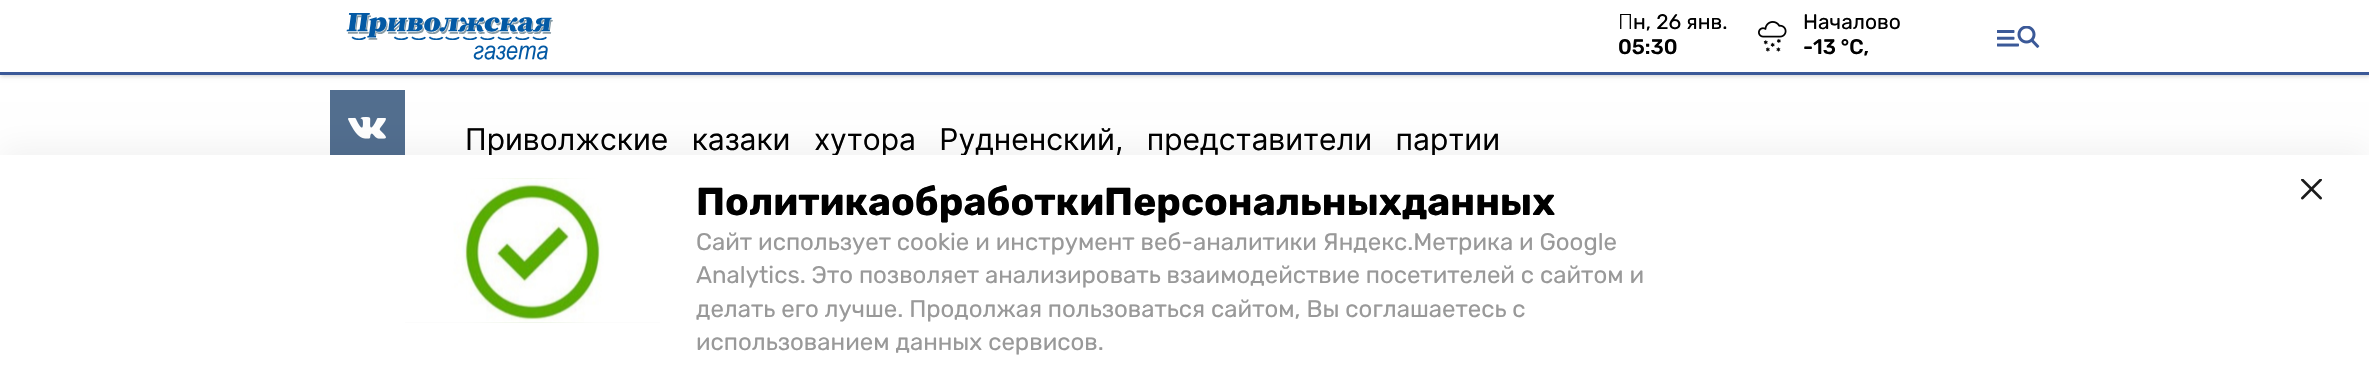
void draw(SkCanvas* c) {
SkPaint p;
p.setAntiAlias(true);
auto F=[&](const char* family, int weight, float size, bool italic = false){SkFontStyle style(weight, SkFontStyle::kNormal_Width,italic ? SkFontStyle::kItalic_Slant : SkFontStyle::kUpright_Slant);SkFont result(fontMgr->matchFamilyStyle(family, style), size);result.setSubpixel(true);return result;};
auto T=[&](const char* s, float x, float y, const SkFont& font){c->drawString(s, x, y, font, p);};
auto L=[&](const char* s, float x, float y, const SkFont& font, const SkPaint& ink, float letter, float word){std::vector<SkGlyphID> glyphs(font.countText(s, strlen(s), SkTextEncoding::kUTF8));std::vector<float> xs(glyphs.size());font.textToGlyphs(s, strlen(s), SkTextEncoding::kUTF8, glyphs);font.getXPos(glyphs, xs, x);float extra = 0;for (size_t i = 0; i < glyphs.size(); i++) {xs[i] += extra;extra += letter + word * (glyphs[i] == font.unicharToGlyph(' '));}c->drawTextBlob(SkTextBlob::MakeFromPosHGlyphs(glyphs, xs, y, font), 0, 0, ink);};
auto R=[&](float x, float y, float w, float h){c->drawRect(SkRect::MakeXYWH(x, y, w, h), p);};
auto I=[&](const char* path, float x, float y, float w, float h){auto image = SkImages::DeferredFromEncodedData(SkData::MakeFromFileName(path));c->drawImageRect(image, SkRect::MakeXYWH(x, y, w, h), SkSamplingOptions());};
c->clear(0xffffffff);
p.setColor(0x1a000000);
p.setMaskFilter(SkMaskFilter::MakeBlur(kNormal_SkBlurStyle, 1.5));
c->drawRect(SkRect::MakeXYWH(2,3,2367,72),p);
p.setMaskFilter(nullptr);
p.setMaskFilter(SkMaskFilter::MakeBlur(kNormal_SkBlurStyle, 2));
c->drawRect(SkRect::MakeXYWH(0,2,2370,75),p);
p.setMaskFilter(nullptr);
p.setColor(0xffffffff);
R(0,0,2369,72);
p.setColor(0xff3b5998);
R(0,72,2369,3);
I("1.png",346,13,207,47);
auto f1 = F("Noto Sans",300,21);
p.setColor(0xff000000);
T("П",1618,29,f1);
auto f2 = F("Rubik",400,21);
T("н, 26 янв.",1633,29,f2);
auto f3 = F("Rubik",500,21);
T("05:30",1618,54,f3);
I("2.png",1758,21,29,31);
T("Началово",1803,29,f2);
T("-13 °С,",1803,54,f3);
I("3.png",1997,26,43,22);
p.setColor(0xff526e8f);
R(330,90,75,65);
I("4.png",348,117,38,22);
auto f4 = F("Inter",400,30);
p.setColor(0xff000000);
L("Приволжские казаки хутора Рудненский, представители партии",465,150,f4,p,0,15);
p.setColor(0x0d000000);
p.setMaskFilter(SkMaskFilter::MakeBlur(kNormal_SkBlurStyle, 15));
c->drawRect(SkRect::MakeXYWH(0,147,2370,230),p);
p.setMaskFilter(nullptr);
p.setColor(0xffffffff);
R(0,155,2369,228);
p.setColor(0xfff7f7f7);
R(405,322,255,1);
I("5.png",405,178,255,145);
I("6.png",405,178,255,145);
auto f5 = F("Rubik",700,39);
p.setColor(0xff000000);
T("Политика обработки Персональных данных",696,215,f5);
auto f6 = F("Rubik",400,24);
p.setColor(0xff999999);
T("Сайт использует cookie и инструмент веб-аналитики Яндекс.Метрика и Google",696,250,f6);
T("Analytics. Это позволяет анализировать взаимодействие посетителей с сайтом и",696,283,f6);
T("делать его лучше. Продолжая пользоваться сайтом, Вы соглашаетесь с",696,317,f6);
T("использованием данных сервисов.",696,350,f6);
I("7.png",2301,179,21,21);
}
